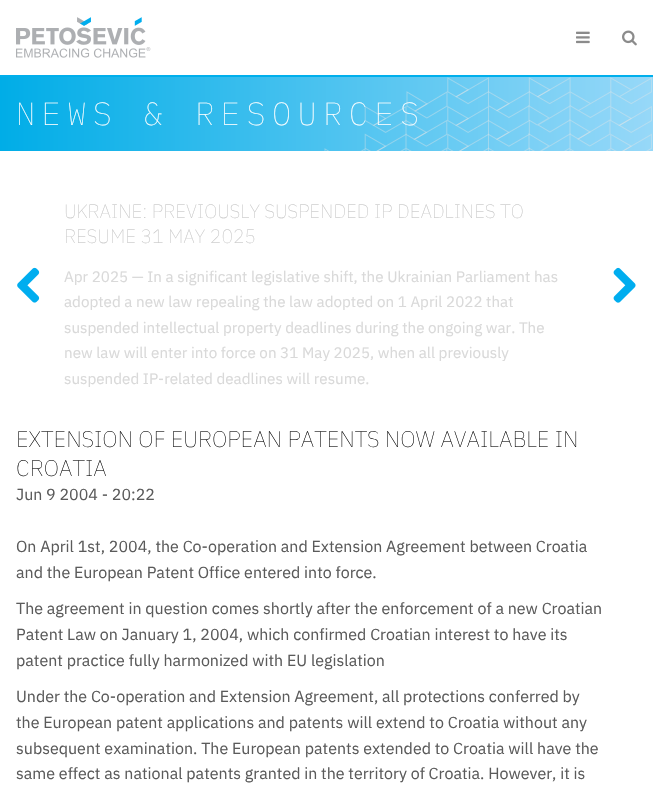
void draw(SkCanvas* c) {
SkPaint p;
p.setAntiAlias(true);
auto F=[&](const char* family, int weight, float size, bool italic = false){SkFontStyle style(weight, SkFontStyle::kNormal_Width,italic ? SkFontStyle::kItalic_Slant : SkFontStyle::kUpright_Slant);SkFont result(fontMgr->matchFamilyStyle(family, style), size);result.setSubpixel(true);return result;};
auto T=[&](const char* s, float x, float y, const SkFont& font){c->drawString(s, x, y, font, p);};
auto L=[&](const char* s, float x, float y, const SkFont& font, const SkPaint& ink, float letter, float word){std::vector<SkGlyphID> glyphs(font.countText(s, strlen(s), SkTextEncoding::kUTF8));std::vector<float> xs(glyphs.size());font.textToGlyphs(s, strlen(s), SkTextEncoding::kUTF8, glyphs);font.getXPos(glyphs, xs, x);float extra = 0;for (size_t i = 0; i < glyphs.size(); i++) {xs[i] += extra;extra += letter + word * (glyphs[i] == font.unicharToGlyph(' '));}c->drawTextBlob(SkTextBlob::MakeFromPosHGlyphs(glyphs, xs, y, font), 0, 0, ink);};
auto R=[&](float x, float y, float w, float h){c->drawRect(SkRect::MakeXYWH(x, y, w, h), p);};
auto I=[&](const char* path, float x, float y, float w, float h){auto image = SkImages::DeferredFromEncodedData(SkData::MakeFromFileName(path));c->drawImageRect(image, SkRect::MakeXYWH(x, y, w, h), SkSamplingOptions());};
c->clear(0xffffffff);
I("1.png",16,17,135,41);
I("2.png",576,31,14,13);
I("3.png",622,30,15,16);
{
const SkColor colors[] = {0xff00ade7,0xff97d8f8};
const float stops[] = {0,1};
const SkPoint ends[] = {{0,114}, {653,114}};
p.setShader(SkGradientShader::MakeLinear(ends, colors, stops, 2, SkTileMode::kClamp));
p.setAlpha(255);
}
R(0,77,653,74);
I("4.png",324,77,328,74);
p.setShader(nullptr);
p.setColor(0xff00afec);
R(0,75,653,2);
auto f1 = F("IBM Plex Mono",100,32);
p.setColor(0xffffffff);
L("NEWS & RESOURCES",16,125,f1,p,6.4,0);
auto f2 = F("IBM Plex Sans",100,19.2);
p.setColor(0xffc4c4c4);
T("UKRAINE: PREVIOUSLY SUSPENDED IP DEADLINES TO",64,218,f2);
T("RESUME 31 MAY 2025",64,243,f2);
auto f3 = F("IBM Plex Sans",400,15.2);
p.setColor(0xffd9d9d9);
T("Apr 2025 — In a significant legislative shift, the Ukrainian Parliament has",64,282,f3);
T("adopted a new law repealing the law adopted on 1 April 2022 that",64,307,f3);
T("suspended intellectual property deadlines during the ongoing war. The",64,333,f3);
T("new law will enter into force on 31 May 2025, when all previously",64,358,f3);
T("suspended IP-related deadlines will resume.",64,384,f3);
I("5.png",17,267,23,36);
I("6.png",613,267,23,36);
auto f4 = F("IBM Plex Sans",100,22.4);
p.setColor(0xff000000);
T("EXTENSION OF EUROPEAN PATENTS NOW AVAILABLE IN",16,447,f4);
T("CROATIA",16,476,f4);
auto f5 = F("IBM Plex Sans",400,16);
p.setColor(0xff5b5b5b);
T("Jun 9 2004 - 20:22",16,500,f5);
T("On April 1st, 2004, the Co-operation and Extension Agreement between Croatia",16,552,f5);
T("and the European Patent Office entered into force.",16,578,f5);
T("The agreement in question comes shortly after the enforcement of a new Croatian",16,614,f5);
T("Patent Law on January 1, 2004, which confirmed Croatian interest to have its",16,640,f5);
T("patent practice fully harmonized with EU legislation",16,666,f5);
T("Under the Co-operation and Extension Agreement, all protections conferred by",16,702,f5);
T("the European patent applications and patents will extend to Croatia without any",16,728,f5);
T("subsequent examination. The European patents extended to Croatia will have the",16,754,f5);
T("same effect as national patents granted in the territory of Croatia. However, it is",16,779,f5);
}
